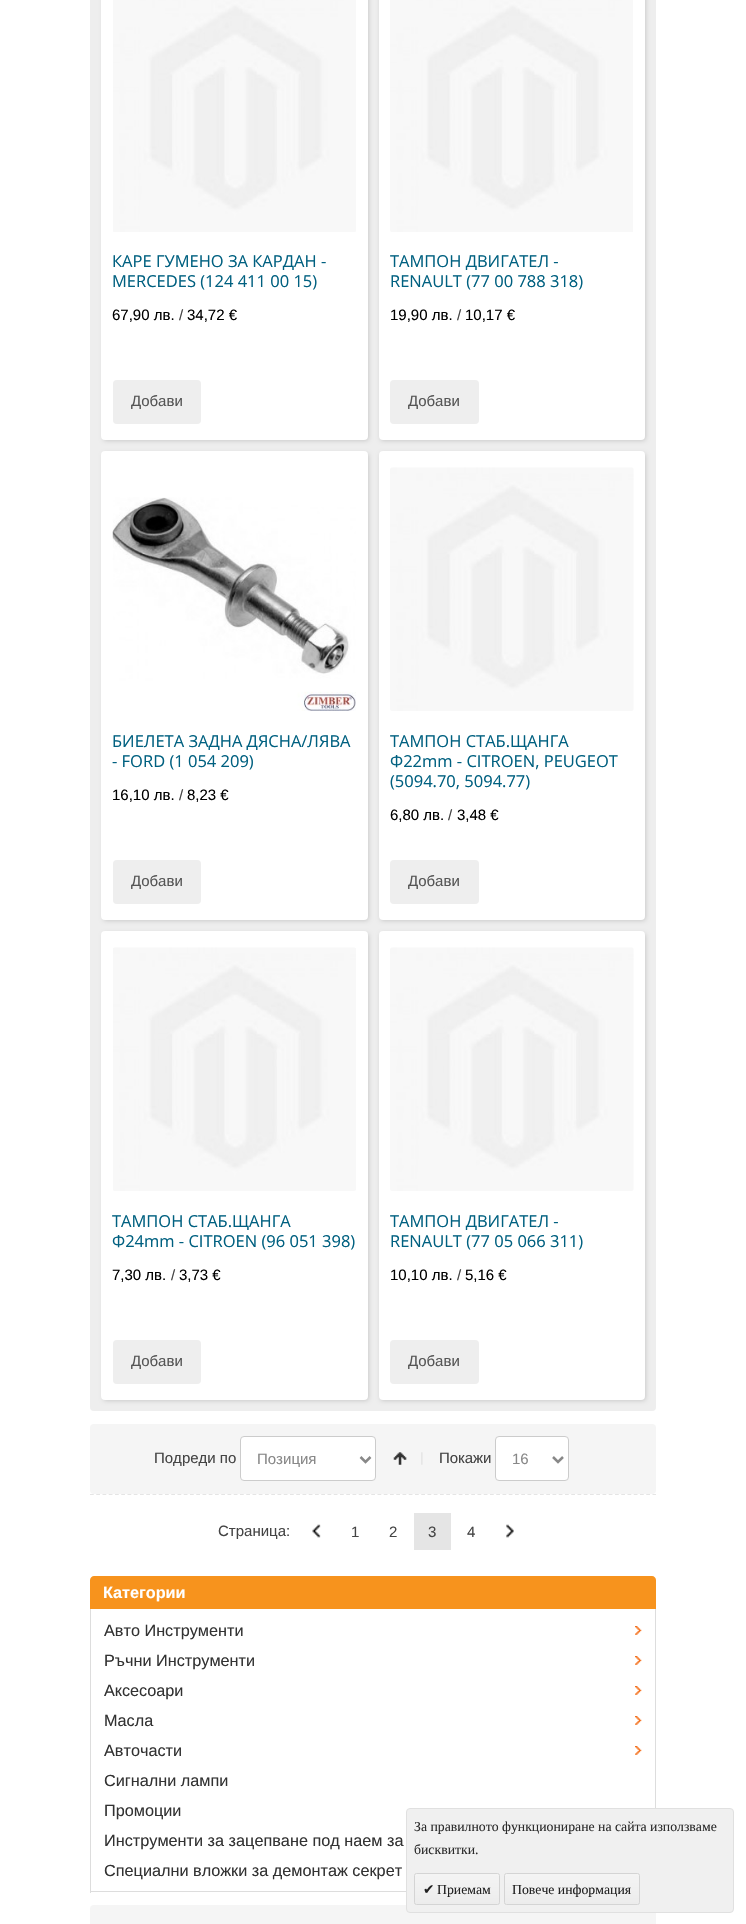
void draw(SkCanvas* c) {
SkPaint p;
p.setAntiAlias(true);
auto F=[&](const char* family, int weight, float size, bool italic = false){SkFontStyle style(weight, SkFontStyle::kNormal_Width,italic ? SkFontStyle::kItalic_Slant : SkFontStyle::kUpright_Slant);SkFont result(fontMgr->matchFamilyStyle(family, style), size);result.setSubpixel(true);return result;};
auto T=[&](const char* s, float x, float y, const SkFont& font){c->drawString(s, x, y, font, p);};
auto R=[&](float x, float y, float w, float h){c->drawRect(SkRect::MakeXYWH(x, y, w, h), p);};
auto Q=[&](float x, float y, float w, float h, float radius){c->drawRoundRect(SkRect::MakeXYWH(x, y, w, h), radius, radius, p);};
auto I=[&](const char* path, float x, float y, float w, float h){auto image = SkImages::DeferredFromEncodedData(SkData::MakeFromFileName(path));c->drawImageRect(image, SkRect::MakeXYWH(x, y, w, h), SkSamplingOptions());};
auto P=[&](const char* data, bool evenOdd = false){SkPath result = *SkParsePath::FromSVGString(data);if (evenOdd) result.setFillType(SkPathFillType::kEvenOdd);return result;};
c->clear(0xffffffff);
p.setColor(0xffeeeeee);
Q(90,-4,566,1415,4);
p.setColor(0x26000000);
p.setMaskFilter(SkMaskFilter::MakeBlur(kNormal_SkBlurStyle, 2));
c->drawRoundRect(SkRect::MakeXYWH(103,-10,266,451),4,4,p);
p.setMaskFilter(nullptr);
p.setColor(0xffffffff);
Q(101,-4,267,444,4);
I("1.png",113,0,243,232);
auto f1 = F("Open Sans",400,16.5);
p.setColor(0xff006080);
T("КАРЕ ГУМЕНО ЗА КАРДАН -",112,267,f1);
T("MERCEDES (124 411 00 15)",112,287,f1);
auto f2 = F("Liberation Sans",400,15);
p.setColor(0xff000000);
T("67,90 лв.",112,320,f2);
p.setColor(0xff444444);
T("/",179,320,f2);
p.setColor(0xff000000);
T("34,72 €",187,320,f2);
p.setColor(0xffeeeeee);
Q(113,380,88,44,4);
p.setColor(0xff555555);
T("Добави",131,406,f2);
p.setColor(0x26000000);
p.setMaskFilter(SkMaskFilter::MakeBlur(kNormal_SkBlurStyle, 2));
c->drawRoundRect(SkRect::MakeXYWH(380,-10,266,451),4,4,p);
p.setMaskFilter(nullptr);
p.setColor(0xffffffff);
Q(379,-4,266,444,4);
I("2.png",390,0,243,232);
p.setColor(0xff006080);
T("ТАМПОН ДВИГАТЕЛ -",390,267,f1);
T("RENAULT (77 00 788 318)",390,287,f1);
p.setColor(0xff000000);
T("19,90 лв.",390,320,f2);
p.setColor(0xff444444);
T("/",457,320,f2);
p.setColor(0xff000000);
T("10,17 €",465,320,f2);
p.setColor(0xffeeeeee);
Q(390,380,89,44,4);
p.setColor(0xff555555);
T("Добави",408,406,f2);
p.setColor(0x26000000);
p.setMaskFilter(SkMaskFilter::MakeBlur(kNormal_SkBlurStyle, 2));
c->drawRoundRect(SkRect::MakeXYWH(103,453,266,468),4,4,p);
p.setMaskFilter(nullptr);
p.setColor(0xffffffff);
Q(101,451,267,469,4);
I("3.png",112,497,244,214);
p.setColor(0xff006080);
T("БИЕЛЕТА ЗАДНА ДЯСНА/ЛЯВА",112,747,f1);
T("- FORD (1 054 209)",112,767,f1);
p.setColor(0xff000000);
T("16,10 лв.",112,800,f2);
p.setColor(0xff444444);
T("/",179,800,f2);
p.setColor(0xff000000);
T("8,23 €",187,800,f2);
p.setColor(0xffeeeeee);
Q(113,860,88,44,4);
p.setColor(0xff555555);
T("Добави",131,886,f2);
p.setColor(0x26000000);
p.setMaskFilter(SkMaskFilter::MakeBlur(kNormal_SkBlurStyle, 2));
c->drawRoundRect(SkRect::MakeXYWH(380,453,266,468),4,4,p);
p.setMaskFilter(nullptr);
p.setColor(0xffffffff);
Q(379,451,266,469,4);
I("4.png",390,467,244,244);
p.setColor(0xff006080);
T("ТАМПОН СТАБ.ЩАНГА",390,747,f1);
T("Ф22mm - CITROEN, PEUGEOT",390,767,f1);
T("(5094.70, 5094.77)",390,787,f1);
p.setColor(0xff000000);
T("6,80 лв.",390,820,f2);
p.setColor(0xff444444);
T("/",448,820,f2);
p.setColor(0xff000000);
T("3,48 €",457,820,f2);
p.setColor(0xffeeeeee);
Q(390,860,89,44,4);
p.setColor(0xff555555);
T("Добави",408,886,f2);
p.setColor(0x26000000);
p.setMaskFilter(SkMaskFilter::MakeBlur(kNormal_SkBlurStyle, 2));
c->drawRoundRect(SkRect::MakeXYWH(103,933,266,468),4,4,p);
p.setMaskFilter(nullptr);
p.setColor(0xffffffff);
Q(101,931,267,469,4);
I("5.png",113,947,243,244);
p.setColor(0xff006080);
T("ТАМПОН СТАБ.ЩАНГА",112,1227,f1);
T("Ф24mm - CITROEN (96 051 398)",112,1247,f1);
p.setColor(0xff000000);
T("7,30 лв.",112,1280,f2);
p.setColor(0xff444444);
T("/",171,1280,f2);
p.setColor(0xff000000);
T("3,73 €",179,1280,f2);
p.setColor(0xffeeeeee);
Q(113,1340,88,44,4);
p.setColor(0xff555555);
T("Добави",131,1366,f2);
p.setColor(0x26000000);
p.setMaskFilter(SkMaskFilter::MakeBlur(kNormal_SkBlurStyle, 2));
c->drawRoundRect(SkRect::MakeXYWH(380,933,266,468),4,4,p);
p.setMaskFilter(nullptr);
p.setColor(0xffffffff);
Q(379,931,266,469,4);
I("4.png",390,947,244,244);
p.setColor(0xff006080);
T("ТАМПОН ДВИГАТЕЛ -",390,1227,f1);
T("RENAULT (77 05 066 311)",390,1247,f1);
p.setColor(0xff000000);
T("10,10 лв.",390,1280,f2);
p.setColor(0xff444444);
T("/",457,1280,f2);
p.setColor(0xff000000);
T("5,16 €",465,1280,f2);
p.setColor(0xffeeeeee);
Q(390,1340,89,44,4);
p.setColor(0xff555555);
T("Добави",408,1366,f2);
p.setColor(0xfff5f5f5);
Q(90,1424,566,70,4);
I("6.png",421,1452,2,13);
p.setColor(0xff444444);
T("Подреди по",154,1463,f2);
p.setColor(0xffffffff);
c->drawRoundRect(SkRect::MakeXYWH(240.5,1436.5,135,44),3.5,3.5,p);
p.setStroke(true);
p.setStrokeWidth(1);
p.setColor(0xffcccccc);
c->drawRoundRect(SkRect::MakeXYWH(240.5,1436.5,135,44),3.5,3.5,p);
p.setStrokeWidth(2.5);
p.setColor(0xff888888);
c->drawPath(P("M360.5 1457l5 5l5-5"),p);
p.setStroke(false);
T("Позиция",257,1464,f2);
I("7.png",393,1452,14,13);
p.setColor(0xff444444);
T("Покажи",439,1463,f2);
p.setColor(0xffffffff);
c->drawRoundRect(SkRect::MakeXYWH(495.5,1436.5,73,44),3.5,3.5,p);
p.setStroke(true);
p.setStrokeWidth(1);
p.setColor(0xffcccccc);
c->drawRoundRect(SkRect::MakeXYWH(495.5,1436.5,73,44),3.5,3.5,p);
p.setStrokeWidth(2.5);
p.setColor(0xff888888);
c->drawPath(P("M553 1457l5 5l5-5"),p);
p.setStroke(false);
T("16",512,1464,f2);
p.setStroke(true);
p.setStrokeWidth(1.2);
p.setColor(0xffe5e5e5);
p.setPathEffect(SkDashPathEffect::Make({{3.75f,2.5f}}, 0));
c->drawPath(P("M90 1494.5h566"),p);
p.setPathEffect(nullptr);
p.setStroke(false);
p.setColor(0xff444444);
T("Страница:",218,1536,f2);
I("8.png",312,1524,9,14);
T("1",351,1537,f2);
T("2",389,1537,f2);
p.setColor(0xffe5e5e5);
R(414,1513,37,37);
p.setColor(0xff444444);
T("3",428,1537,f2);
T("4",467,1537,f2);
I("9.png",506,1524,8,14);
p.setColor(0xfff7931d);
c->drawPath(P("M94 1576h558c2 0 4 2 4 4v29h-566v-29c0-2 2-4 4-4z"),p);
auto f3 = F("Liberation Sans",700,16.25);
p.setColor(0xffffffff);
T("Категории",103,1598,f3);
p.setColor(0xffdddddd);
R(655,1609,1,199);
R(90,1891,316,1);
R(90,1609,1,284);
I("10.png",635,1626,7,9);
auto f4 = F("Liberation Sans",400,16.25);
p.setColor(0xff333333);
T("Авто Инструменти",104,1636,f4);
I("10.png",635,1656,7,9);
T("Ръчни Инструменти",104,1666,f4);
I("10.png",635,1686,7,9);
T("Аксесоари",104,1696,f4);
I("10.png",635,1716,7,9);
T("Масла",104,1726,f4);
I("10.png",635,1746,7,9);
T("Авточасти",104,1756,f4);
T("Сигнални лампи",104,1786,f4);
T("Промоции",104,1816,f4);
T("Инструменти за зацепване под наем за",104,1846,f4);
T("Специални вложки за демонтаж секрет",104,1876,f4);
p.setColor(0xfff5f5f5);
Q(90,1905,566,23,4);
p.setColor(0xfff0f0f0);
c->drawRoundRect(SkRect::MakeXYWH(406.5,1808.5,327,104),3.5,3.5,p);
p.setStroke(true);
p.setStrokeWidth(1);
p.setColor(0xffe0e0e0);
c->drawRoundRect(SkRect::MakeXYWH(406.5,1808.5,327,104),3.5,3.5,p);
auto f5 = F("Liberation Serif",400,13.75);
p.setStroke(false);
p.setColor(0xff2c2c2c);
T("За правилното функциониране на сайта използваме",414,1831,f5);
T("бисквитки.",414,1854,f5);
c->save();
c->clipPath(P("M416.5 1873h81c1.5 0 2.5 1 2.5 2.5v27c0 1.5-1 2.5-2.5 2.5h-81c-1.5 0-2.5-1-2.5-2.5v-27c0-1.5 1-2.5 2.5-2.5z"),true);
{
const SkColor colors[] = {0xfff4f4f4,0xffececec};
const float stops[] = {0,1};
const SkPoint ends[] = {{457,1874}, {457,1904}};
p.setShader(SkGradientShader::MakeLinear(ends, colors, stops, 2, SkTileMode::kClamp));
p.setAlpha(255);
}
R(414,1874,86,30);
c->restore();
p.setStroke(true);
p.setShader(nullptr);
p.setColor(0xffd4d4d4);
c->drawRoundRect(SkRect::MakeXYWH(414.5,1873.5,85,31),2,2,p);
auto f6 = F("DejaVu Sans",400,13.75);
p.setStroke(false);
p.setColor(0xff222222);
T("✔",423,1894,f6);
T("Приемам",437,1894,f5);
c->save();
c->clipPath(P("M506.5 1873h131c1.5 0 2.5 1 2.5 2.5v27c0 1.5-1 2.5-2.5 2.5h-131c-1.5 0-2.5-1-2.5-2.5v-27c0-1.5 1-2.5 2.5-2.5z"),true);
{
const SkColor colors[] = {0xfff4f4f4,0xffececec};
const float stops[] = {0,1};
const SkPoint ends[] = {{572,1874}, {572,1904}};
p.setShader(SkGradientShader::MakeLinear(ends, colors, stops, 2, SkTileMode::kClamp));
p.setAlpha(255);
}
R(504,1874,136,30);
c->restore();
p.setStroke(true);
p.setShader(nullptr);
p.setColor(0xffd4d4d4);
c->drawRoundRect(SkRect::MakeXYWH(504.5,1873.5,135,31),2,2,p);
p.setStroke(false);
p.setColor(0xff222222);
T("Повече информация",512,1894,f5);
}
